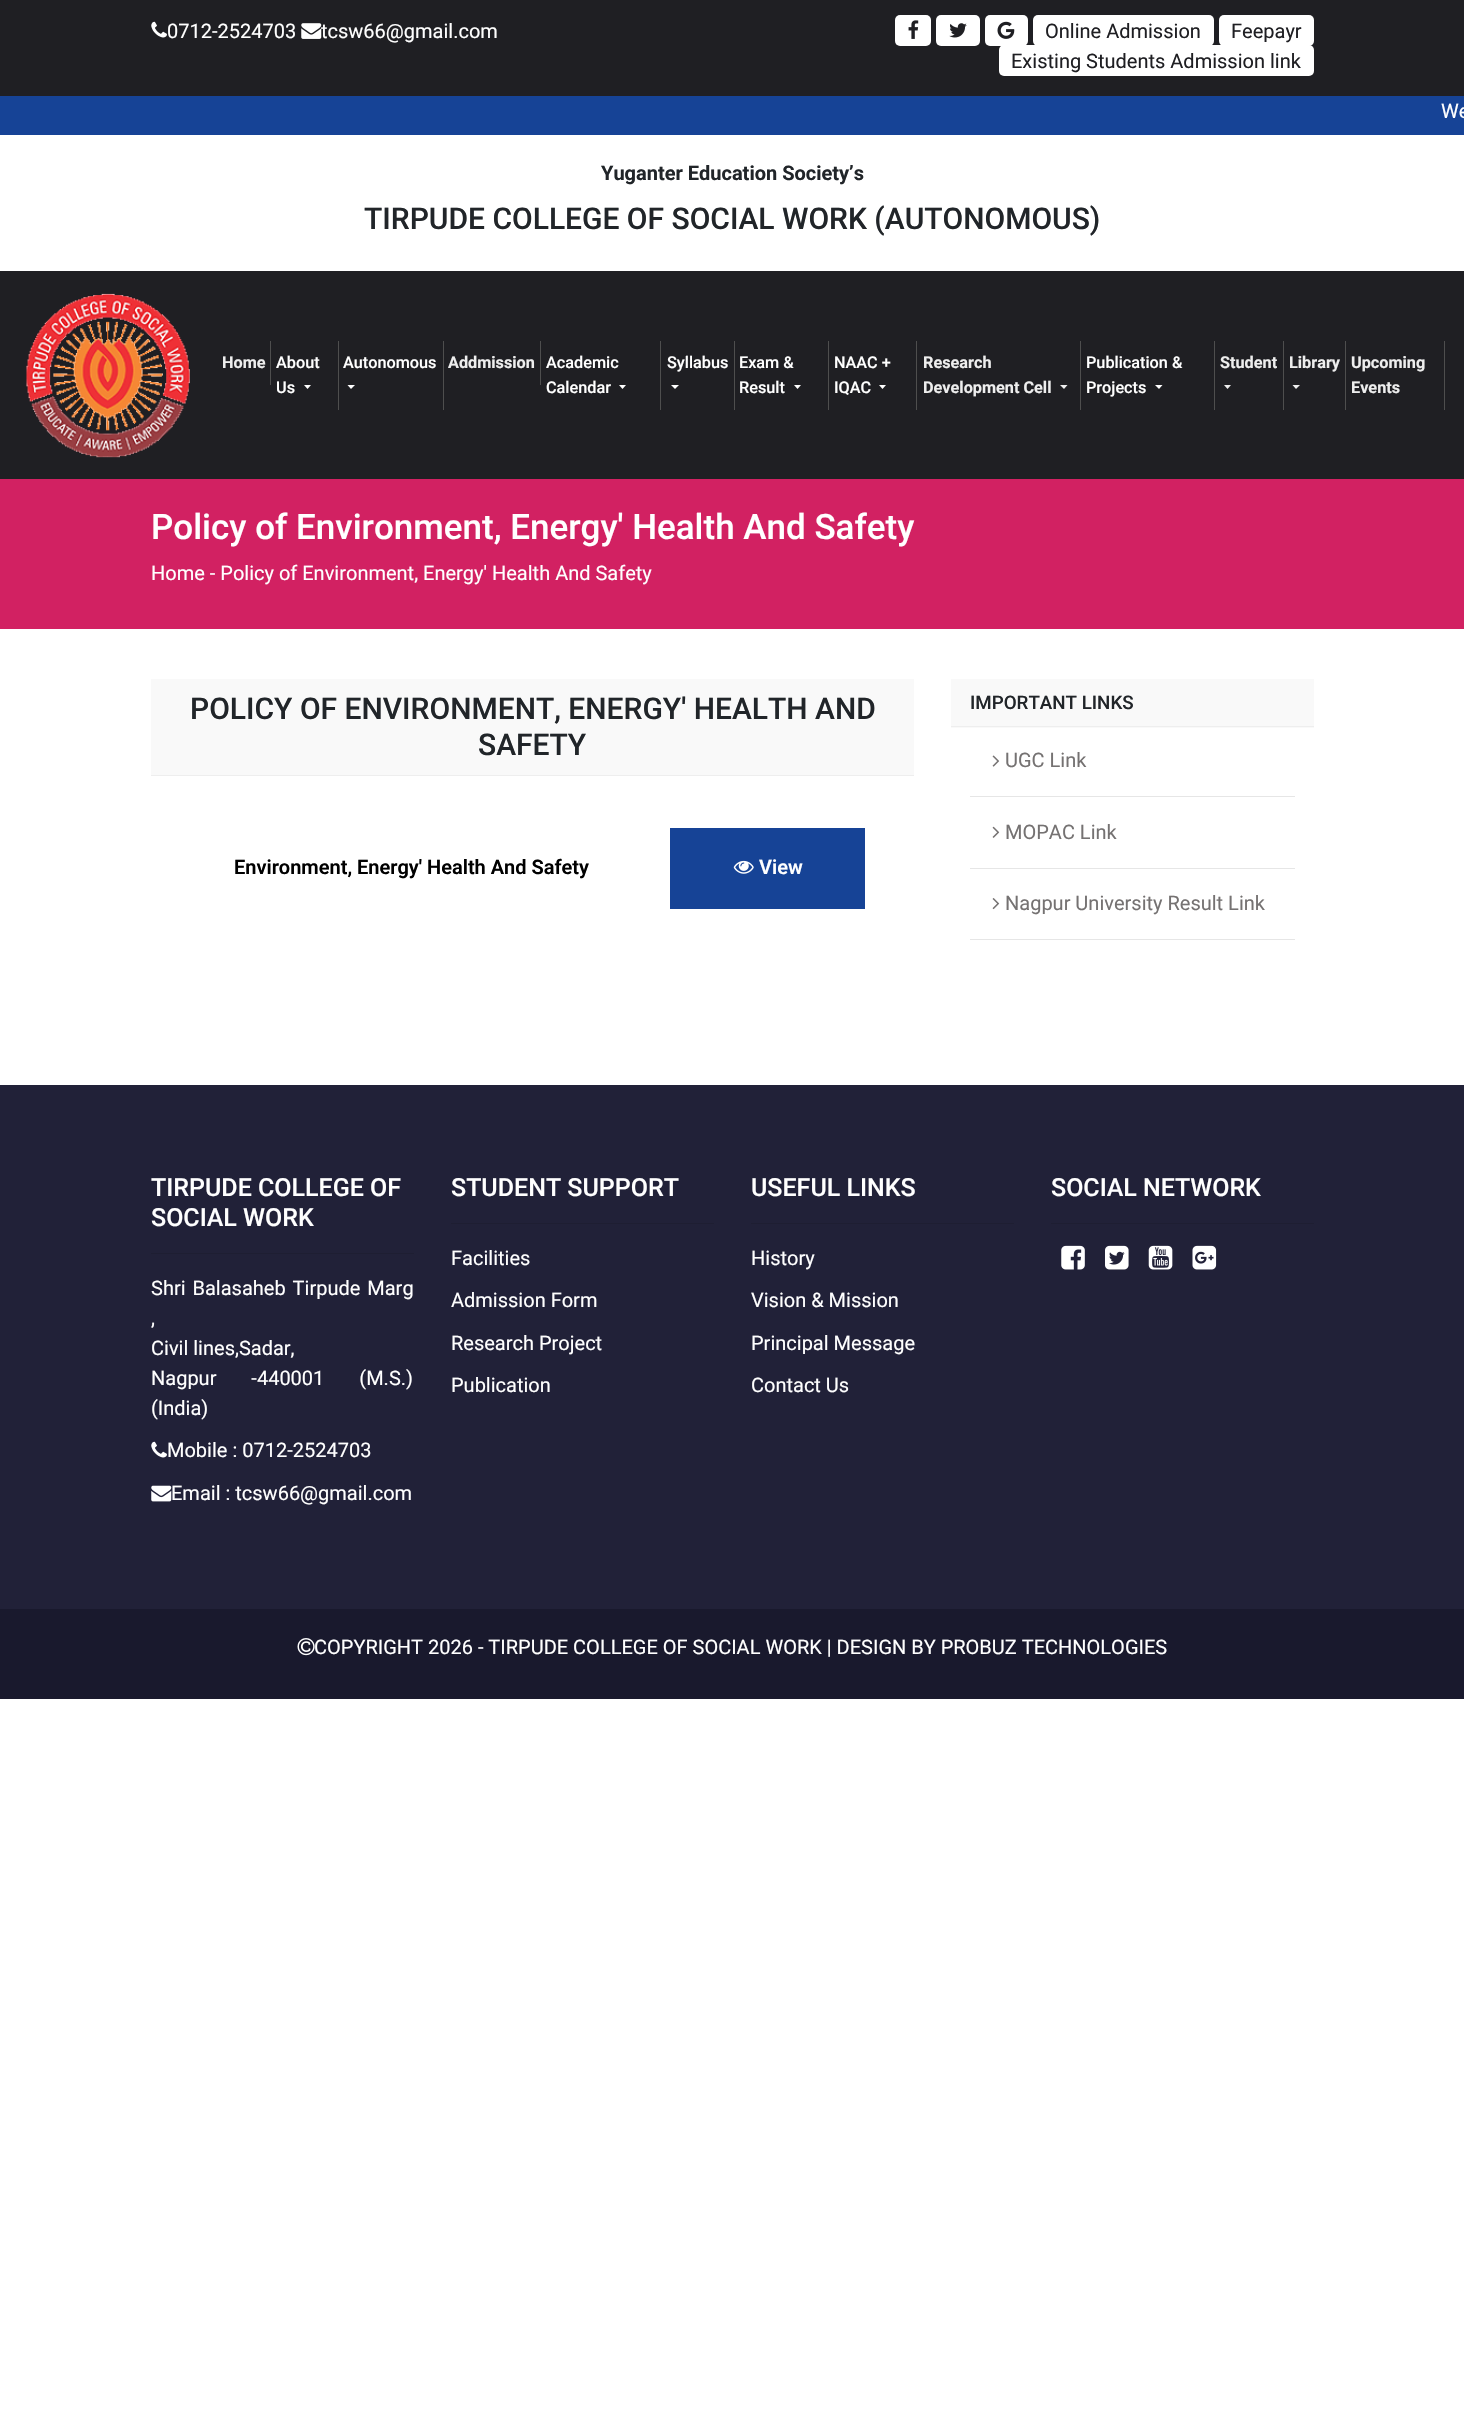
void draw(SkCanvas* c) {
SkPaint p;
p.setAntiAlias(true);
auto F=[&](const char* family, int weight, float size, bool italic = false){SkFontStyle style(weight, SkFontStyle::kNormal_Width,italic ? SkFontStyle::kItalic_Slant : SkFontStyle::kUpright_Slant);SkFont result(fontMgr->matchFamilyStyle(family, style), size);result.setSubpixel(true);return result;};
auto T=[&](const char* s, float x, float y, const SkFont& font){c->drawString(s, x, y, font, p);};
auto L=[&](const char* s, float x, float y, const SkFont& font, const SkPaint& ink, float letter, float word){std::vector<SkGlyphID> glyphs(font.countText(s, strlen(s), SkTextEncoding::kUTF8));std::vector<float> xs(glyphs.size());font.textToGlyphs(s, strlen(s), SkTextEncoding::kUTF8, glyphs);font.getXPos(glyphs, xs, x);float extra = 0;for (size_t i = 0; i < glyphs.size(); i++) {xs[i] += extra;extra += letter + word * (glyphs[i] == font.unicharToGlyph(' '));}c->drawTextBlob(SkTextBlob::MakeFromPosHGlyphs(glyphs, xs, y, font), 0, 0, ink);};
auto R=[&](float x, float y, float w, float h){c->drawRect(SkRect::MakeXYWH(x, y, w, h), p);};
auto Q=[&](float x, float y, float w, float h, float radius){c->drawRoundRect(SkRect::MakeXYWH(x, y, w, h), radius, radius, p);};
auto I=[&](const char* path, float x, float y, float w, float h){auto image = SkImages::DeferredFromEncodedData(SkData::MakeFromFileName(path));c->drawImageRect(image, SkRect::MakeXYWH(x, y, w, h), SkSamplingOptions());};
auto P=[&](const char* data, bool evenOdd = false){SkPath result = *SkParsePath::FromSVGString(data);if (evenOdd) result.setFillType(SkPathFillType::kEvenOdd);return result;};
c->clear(0xffffffff);
p.setColor(0xff1f1f23);
R(0,0,1464,96);
I("1.png",151,21,16,17);
auto f1 = F("Roboto",400,20);
p.setColor(0xffffffff);
T("0712-2524703",167,38,f1);
I("2.png",301,23,21,16);
T("tcsw66@gmail.com",321,38,f1);
Q(895,15,36,31,5);
I("3.png",908,20,11,19);
Q(936,15,44,31,5);
I("4.png",949,23,18,15);
Q(985,15,43,31,5);
I("5.png",997,21,18,18);
Q(1033,15,181,31,5);
p.setColor(0xff1f1f23);
T("Online Admission",1045,38,f1);
p.setColor(0xffffffff);
Q(1219,15,95,31,5);
p.setColor(0xff1f1f23);
T("Feepayr",1231,38,f1);
p.setColor(0xffffffff);
Q(999,45,315,31,5);
p.setColor(0xff1f1f23);
T("Existing Students Admission link",1011,68,f1);
p.setColor(0xff164396);
R(0,96,1464,39);
p.setColor(0xffffffff);
T("We",1441,118,f1);
auto f2 = F("Roboto",700,20);
p.setColor(0xff212529);
T("Yuganter Education Society’s",601,180,f2);
auto f3 = F("Roboto",500,30);
T("TIRPUDE COLLEGE OF SOCIAL WORK (AUTONOMOUS)",364,229,f3);
p.setColor(0xff1f1f23);
R(0,271,1464,208);
I("6.png",26,293,164,165);
p.setColor(0xff4e4e4e);
R(270,341,1,44);
auto f4 = F("Roboto",700,16.25);
p.setColor(0xffeeeeee);
T("Home",222,368,f4);
p.setColor(0xff4e4e4e);
R(338,341,1,69);
auto f5 = F("Roboto",500,16.25);
p.setColor(0xffffffff);
T("About",276,368,f5);
T("Us",276,393,f5);
c->drawPath(P("M304 385h7l-3.5 4z"),p);
p.setColor(0xff4e4e4e);
R(443,341,1,69);
p.setColor(0xffffffff);
T("Autonomous",343,368,f5);
c->drawPath(P("M347.5 385h7.5l-4 4z"),p);
p.setColor(0xff4e4e4e);
R(540,341,1,44);
p.setColor(0xffeeeeee);
T("Addmission",448,368,f4);
p.setColor(0xff4e4e4e);
R(660,341,1,69);
p.setColor(0xffffffff);
T("Academic",546,368,f5);
T("Calendar",546,393,f5);
c->drawPath(P("M619 385h7l-3.5 4z"),p);
p.setColor(0xff4e4e4e);
R(734,341,1,69);
p.setColor(0xffffffff);
T("Syllabus",667,368,f5);
c->drawPath(P("M671 385h8l-4 4z"),p);
p.setColor(0xff4e4e4e);
R(828,341,1,69);
p.setColor(0xffffffff);
T("Exam &",739,368,f5);
T("Result",739,393,f5);
c->drawPath(P("M794 385h7l-3.5 4z"),p);
p.setColor(0xff4e4e4e);
R(916,341,1,69);
p.setColor(0xffffffff);
T("NAAC +",834,368,f5);
T("IQAC",834,393,f5);
c->drawPath(P("M879 385h7l-3.5 4z"),p);
p.setColor(0xff4e4e4e);
R(1080,341,1,69);
p.setColor(0xffeeeeee);
T("Research",923,368,f4);
T("Development Cell",923,393,f4);
c->drawPath(P("M1060 385h7.5l-3.5 4z"),p);
p.setColor(0xff4e4e4e);
R(1214,341,1,69);
p.setColor(0xffffffff);
T("Publication &",1086,368,f5);
T("Projects",1086,393,f5);
c->drawPath(P("M1155 385h7.5l-3.5 4z"),p);
p.setColor(0xff4e4e4e);
R(1283,341,1,69);
p.setColor(0xffeeeeee);
T("Student",1220,368,f4);
c->drawPath(P("M1224 385h7l-3.5 4z"),p);
p.setColor(0xff4e4e4e);
R(1345,341,1,69);
p.setColor(0xffeeeeee);
T("Library",1289,368,f4);
c->drawPath(P("M1292.5 385h7.5l-4 4z"),p);
p.setColor(0xff4e4e4e);
R(1444,341,1,69);
p.setColor(0xffeeeeee);
T("Upcoming",1351,368,f4);
T("Events",1351,393,f4);
p.setColor(0xffd22162);
R(0,479,1464,150);
auto f6 = F("Roboto",500,35);
p.setColor(0xffffffff);
T("Policy of Environment, Energy' Health And Safety",151,539,f6);
T("Home - Policy of Environment, Energy' Health And Safety",151,580,f1);
p.setColor(0xfff9f9f9);
R(151,679,763,96);
p.setColor(0xffeeeeee);
R(151,775,763,1);
p.setColor(0xff212529);
T("POLICY OF ENVIRONMENT, ENERGY' HEALTH AND",190,719,f3);
T("SAFETY",478,755,f3);
auto f7 = F("Roboto",600,20);
p.setColor(0xff000000);
T("Environment, Energy' Health And Safety",234,874,f7);
p.setColor(0xff164396);
R(670,828,195,81);
I("7.png",733,860,21,14);
p.setColor(0xffffffff);
T("View",759,874,f7);
p.setColor(0xfff9f9f9);
R(951,679,363,49);
p.setColor(0xffeeeeee);
R(951,726,363,1);
auto f8 = F("Roboto",500,18.75);
p.setColor(0xff212529);
T("IMPORTANT LINKS",970,709,f8);
I("8.png",992,755,8,12);
p.setColor(0xff757272);
T("UGC Link",1005,767,f1);
p.setColor(0xffe6e6e6);
R(970,796,325,1);
I("9.png",992,826,8,12);
p.setColor(0xff757272);
T("MOPAC Link",1005,839,f1);
p.setColor(0xffe6e6e6);
R(970,868,325,1);
I("10.png",992,898,8,12);
p.setColor(0xff757272);
T("Nagpur University Result Link",1005,910,f1);
p.setColor(0xffe6e6e6);
R(970,939,325,1);
p.setColor(0xff212138);
R(0,1085,1464,524);
auto f9 = F("Roboto",500,25);
p.setColor(0xffffffff);
T("TIRPUDE COLLEGE OF",151,1196,f9);
T("SOCIAL WORK",151,1226,f9);
p.setColor(0xff1e1e32);
R(151,1253,263,1);
p.setColor(0xffffffff);
L("Shri Balasaheb Tirpude Marg",151,1295,f1,p,0,2);
T(",",151,1325,f1);
T("Civil lines,Sadar,",151,1355,f1);
L("Nagpur -440001 (M.S.)",151,1385,f1,p,0,30);
T("(India)",151,1415,f1);
I("11.png",151,1441,16,17);
T("Mobile : 0712-2524703",167,1457,f1);
I("12.png",151,1485,21,17);
T("Email : tcsw66@gmail.com",171,1500,f1);
T("STUDENT SUPPORT",451,1196,f9);
p.setColor(0xff1e1e32);
R(451,1223,263,1);
p.setColor(0xffffffff);
T("Facilities",451,1265,f1);
T("Admission Form",451,1307,f1);
T("Research Project",451,1350,f1);
T("Publication",451,1392,f1);
T("USEFUL LINKS",751,1196,f9);
p.setColor(0xff1e1e32);
R(751,1223,263,1);
p.setColor(0xffffffff);
T("History",751,1265,f1);
T("Vision & Mission",751,1307,f1);
T("Principal Message",751,1350,f1);
T("Contact Us",751,1392,f1);
T("SOCIAL NETWORK",1051,1196,f9);
p.setColor(0xff1e1e32);
R(1051,1223,263,1);
I("13.png",1061,1245,24,25);
I("14.png",1105,1245,24,25);
I("15.png",1148,1245,25,25);
I("16.png",1192,1245,25,25);
p.setColor(0xff19192d);
R(0,1609,1464,90);
I("17.png",297,1638,18,18);
p.setColor(0xffffffff);
T("COPYRIGHT 2026 - TIRPUDE COLLEGE OF SOCIAL WORK | DESIGN BY PROBUZ TECHNOLOGIES",314,1654,f1);
}
